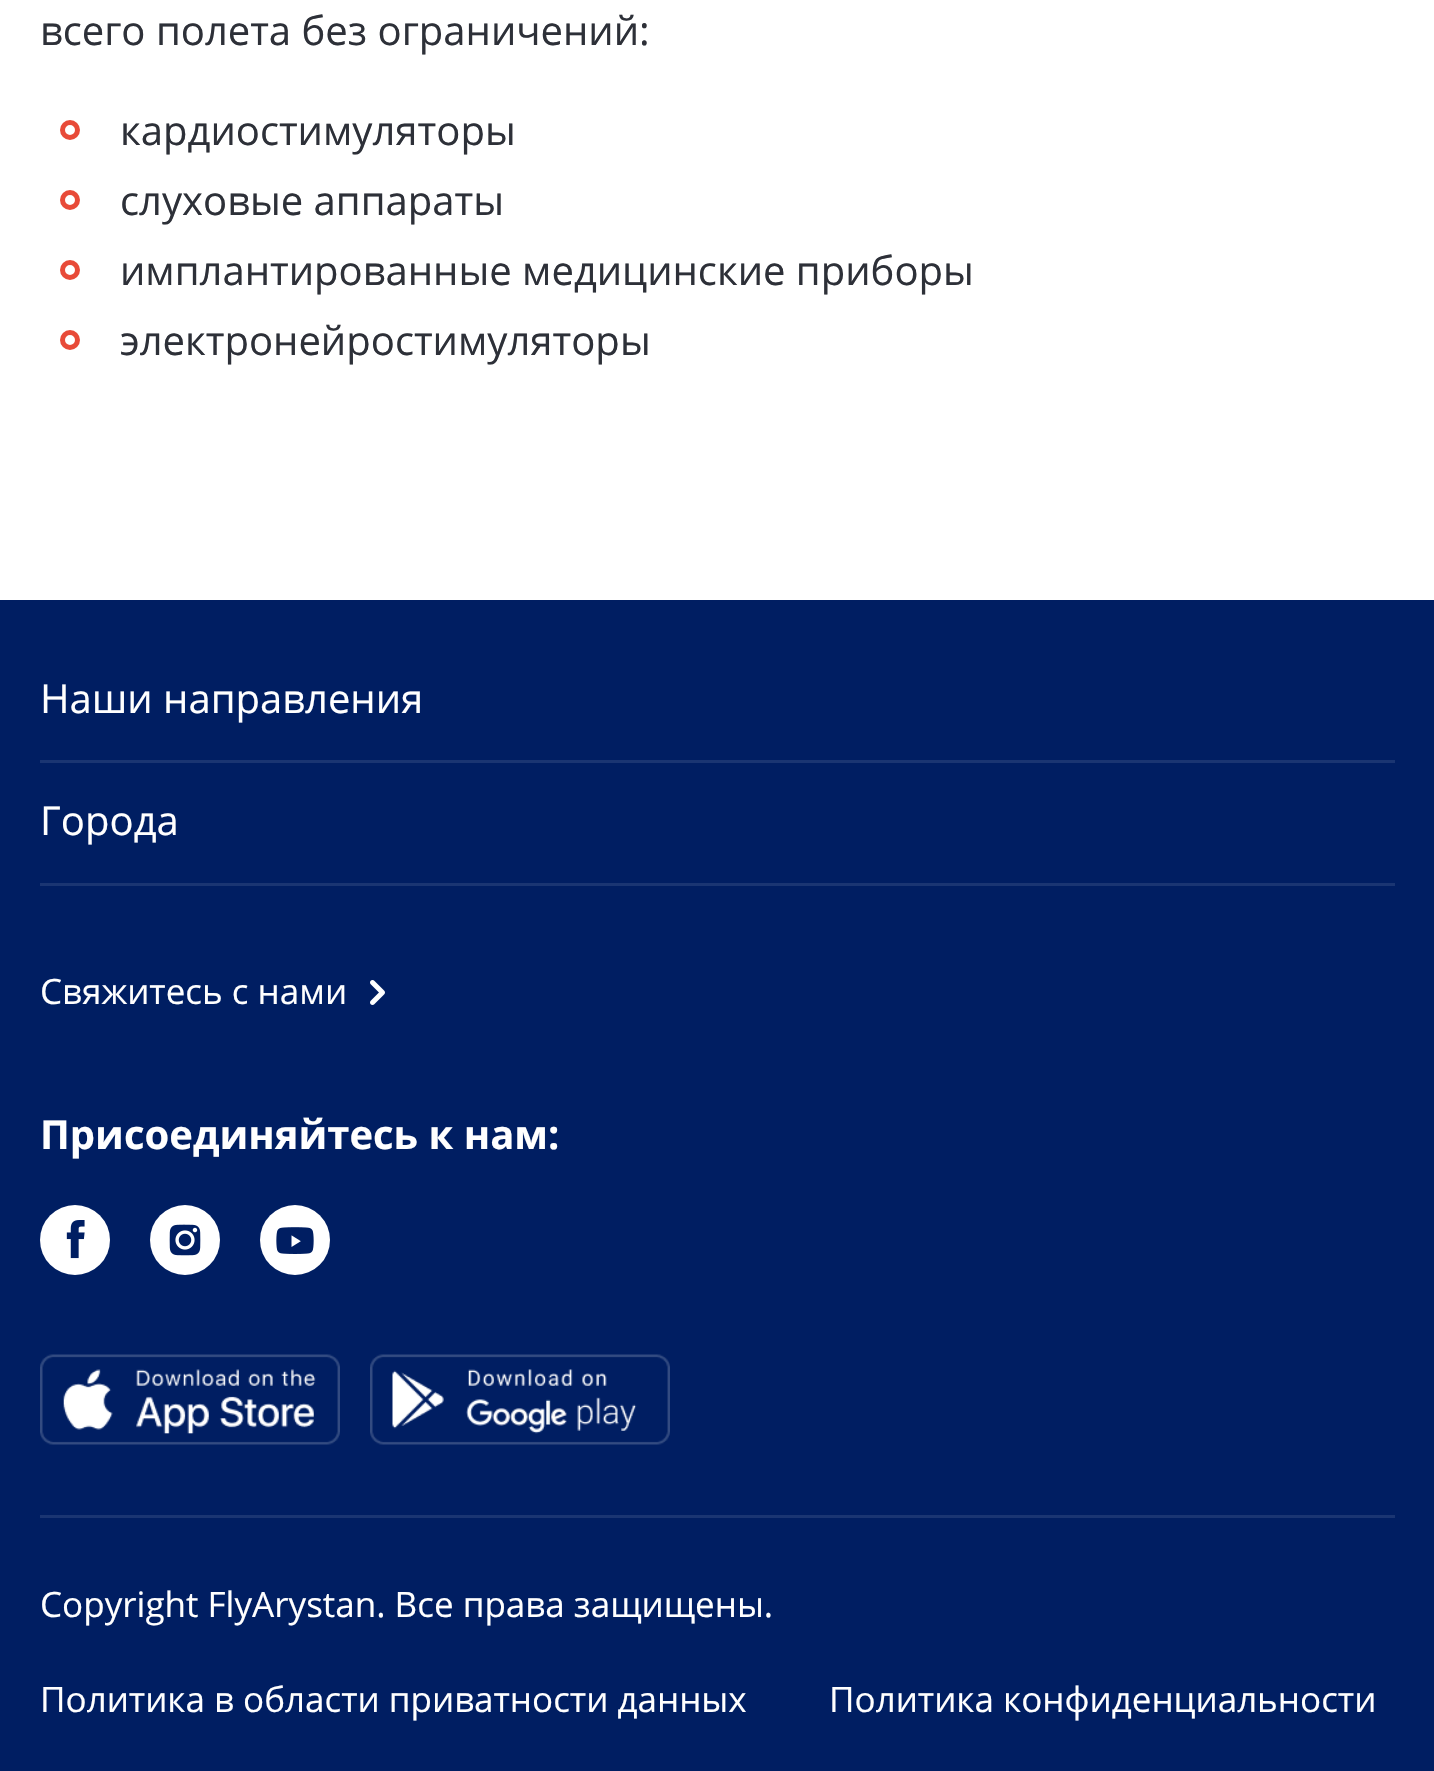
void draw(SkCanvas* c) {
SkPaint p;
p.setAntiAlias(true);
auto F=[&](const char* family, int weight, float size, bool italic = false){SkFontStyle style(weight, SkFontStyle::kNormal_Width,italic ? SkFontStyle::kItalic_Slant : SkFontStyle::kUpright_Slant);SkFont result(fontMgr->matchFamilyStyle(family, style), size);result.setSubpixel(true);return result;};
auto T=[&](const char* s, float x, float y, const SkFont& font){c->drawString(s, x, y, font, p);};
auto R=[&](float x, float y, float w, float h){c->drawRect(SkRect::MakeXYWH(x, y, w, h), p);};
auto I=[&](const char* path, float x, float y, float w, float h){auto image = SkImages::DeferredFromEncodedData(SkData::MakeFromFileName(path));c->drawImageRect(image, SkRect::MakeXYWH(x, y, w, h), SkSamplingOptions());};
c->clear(0xffffffff);
auto f1 = F("Open Sans",400,40);
p.setColor(0xff2d3038);
T("всего полета без ограничений:",40,45,f1);
p.setStroke(true);
p.setStrokeWidth(5);
p.setColor(0xffe84a38);
c->drawCircle(70,130,7.5,p);
p.setStroke(false);
p.setColor(0xff2d3038);
T("кардиостимуляторы",120,145,f1);
p.setStroke(true);
p.setColor(0xffe84a38);
c->drawCircle(70,200,7.5,p);
p.setStroke(false);
p.setColor(0xff2d3038);
T("слуховые аппараты",120,215,f1);
p.setStroke(true);
p.setColor(0xffe84a38);
c->drawCircle(70,270,7.5,p);
p.setStroke(false);
p.setColor(0xff2d3038);
T("имплантированные медицинские приборы",120,285,f1);
p.setStroke(true);
p.setColor(0xffe84a38);
c->drawCircle(70,340,7.5,p);
p.setStroke(false);
p.setColor(0xff2d3038);
T("электронейростимуляторы",120,355,f1);
p.setColor(0xff001e62);
R(0,600,1434,1171);
p.setColor(0xff1a3572);
R(40,760,1355,3);
p.setColor(0xffffffff);
T("Наши направления",40,713,f1);
p.setColor(0xff1a3572);
R(40,883,1355,3);
p.setColor(0xffffffff);
T("Города",40,835,f1);
auto f2 = F("Open Sans",400,35);
T("Свяжитесь с нами",40,1004,f2);
I("1.png",370,980,15,25);
auto f3 = F("Open Sans",700,40);
T("Присоединяйтесь к нам:",40,1149,f3);
c->drawCircle(75,1240,35,p);
I("2.png",66,1220,19,39);
c->drawCircle(185,1240,35,p);
I("3.png",169,1224,32,32);
c->drawCircle(295,1240,35,p);
I("4.png",276,1227,38,27);
I("5.png",40,1354,300,91);
I("6.png",370,1354,300,91);
p.setColor(0xff1a3572);
R(40,1515,1355,3);
p.setColor(0xffffffff);
T("Copyright FlyArystan. Все права защищены.",40,1617,f2);
T("Политика в области приватности данных",40,1712,f2);
T("Политика конфиденциальности",829,1712,f2);
}
